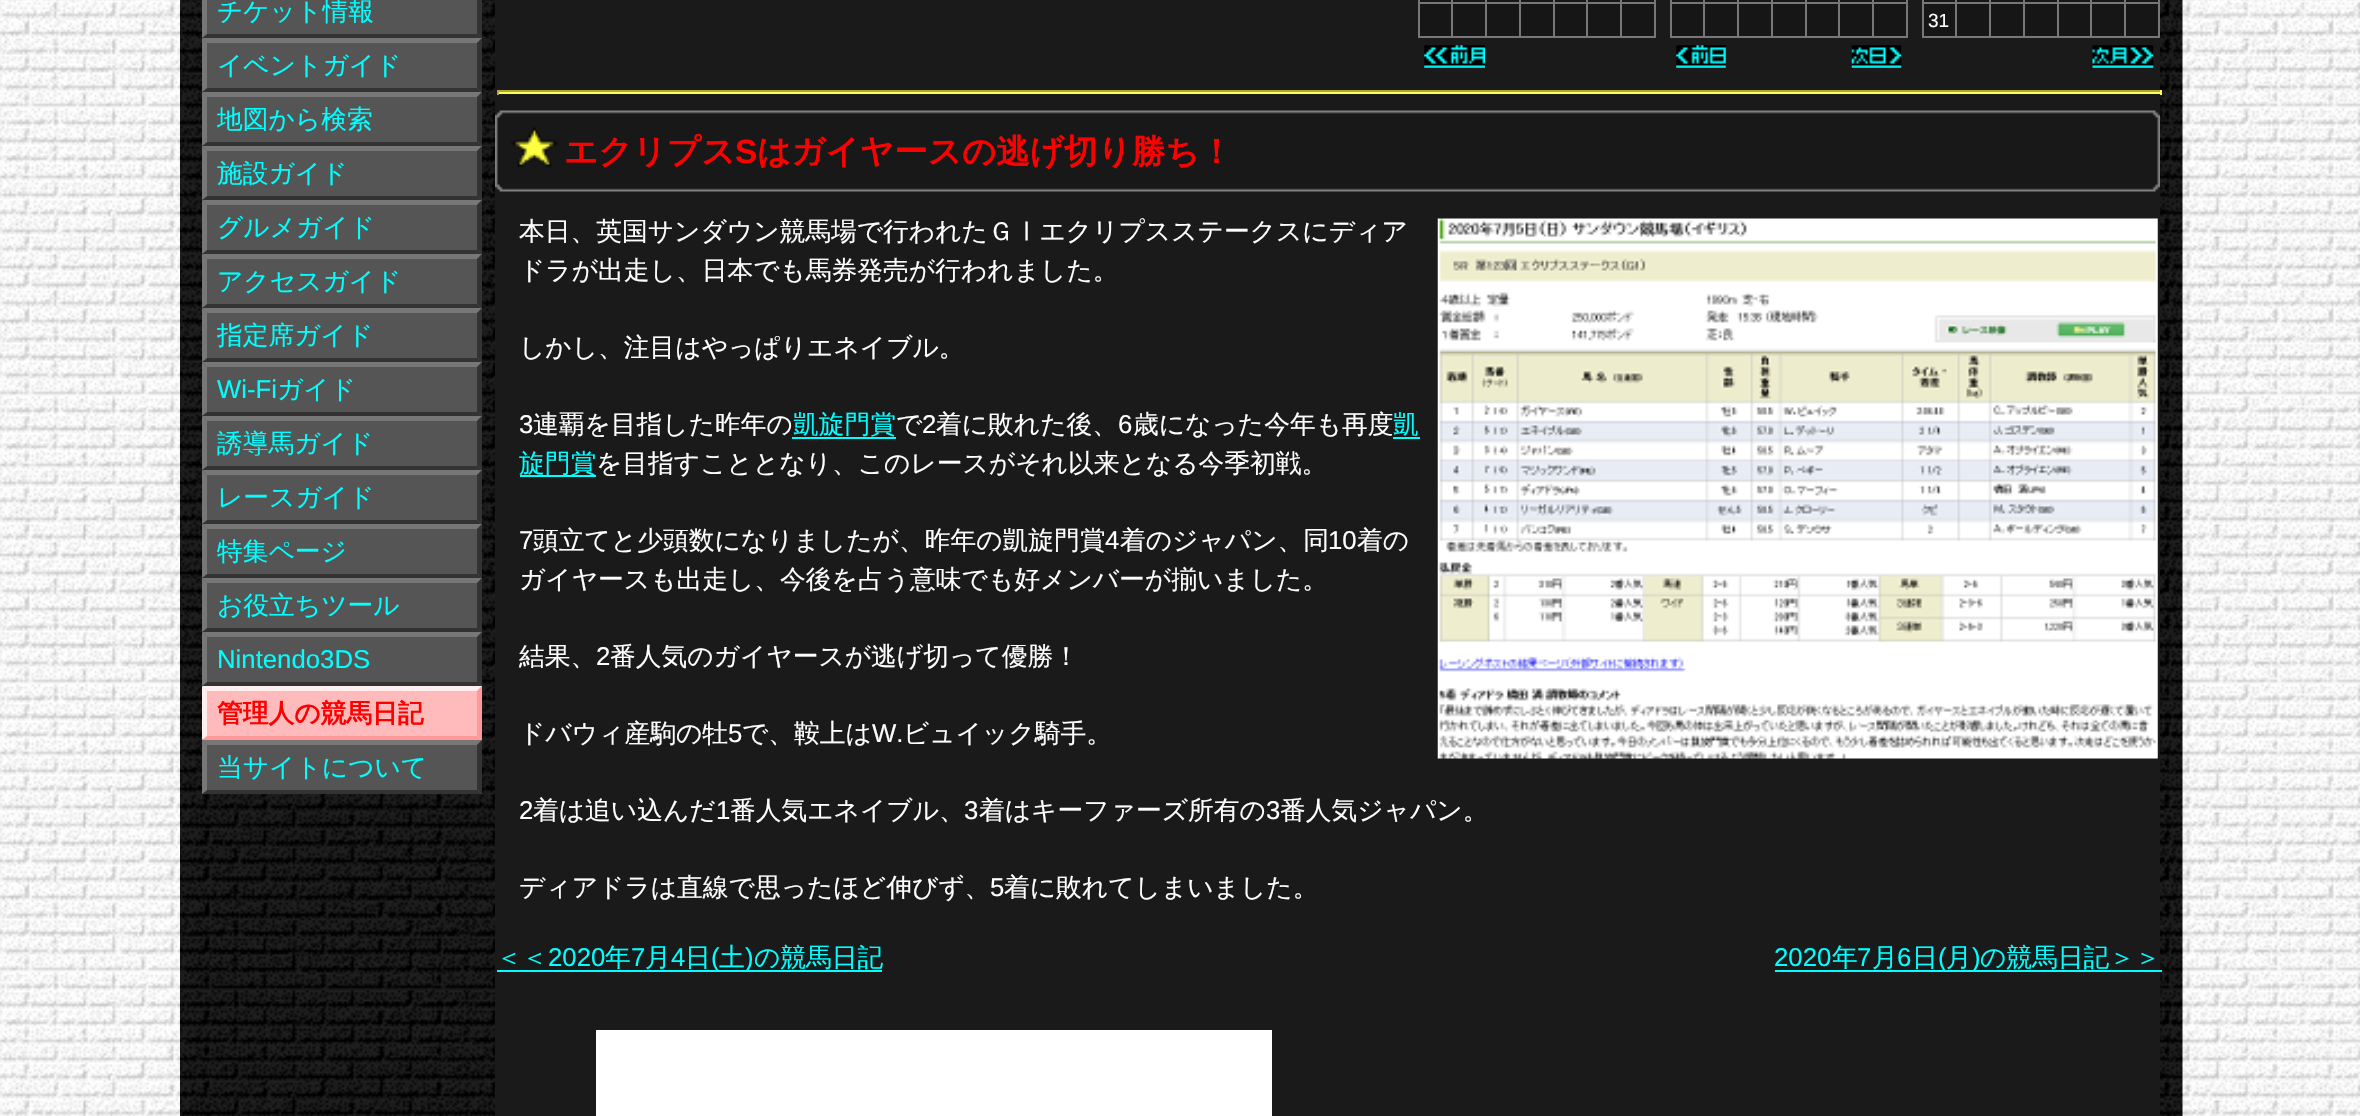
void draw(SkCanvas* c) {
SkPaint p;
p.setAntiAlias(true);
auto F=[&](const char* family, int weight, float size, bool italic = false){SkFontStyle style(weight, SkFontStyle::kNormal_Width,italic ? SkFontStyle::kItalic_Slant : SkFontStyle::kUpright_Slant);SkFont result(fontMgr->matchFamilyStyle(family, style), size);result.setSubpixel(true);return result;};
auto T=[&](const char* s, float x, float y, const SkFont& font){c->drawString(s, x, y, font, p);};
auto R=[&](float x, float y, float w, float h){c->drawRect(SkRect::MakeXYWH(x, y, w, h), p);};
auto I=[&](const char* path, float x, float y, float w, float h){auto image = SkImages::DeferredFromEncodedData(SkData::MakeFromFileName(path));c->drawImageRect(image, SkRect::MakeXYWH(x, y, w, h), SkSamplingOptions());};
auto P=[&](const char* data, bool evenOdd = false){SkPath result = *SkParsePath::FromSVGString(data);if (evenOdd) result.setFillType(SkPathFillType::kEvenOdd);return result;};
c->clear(0xffffffff);
I("1.png",0,0,2360,1116);
I("2.png",180,0,2003,1116);
p.setColor(0xff555555);
R(203,0,279,686);
p.setColor(0xff333333);
c->drawPath(P("M482-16v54l-5-4v-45z"),p);
c->drawPath(P("M482 38h-280l5-4h270z"),p);
p.setColor(0xff777777);
c->drawPath(P("M202 38v-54l5 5v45z"),p);
auto f1 = F("WenQuanYi Zen Hei",500,25.75);
p.setColor(0xff00ffff);
T("チケット情報",217,20,f1);
p.setColor(0xff777777);
c->drawPath(P("M202 38h280l-5 5h-270z"),p);
p.setColor(0xff333333);
c->drawPath(P("M482 38v54l-5-4v-45z"),p);
c->drawPath(P("M482 92h-280l5-4h270z"),p);
p.setColor(0xff777777);
c->drawPath(P("M202 92v-54l5 5v45z"),p);
p.setColor(0xff00ffff);
T("イベントガイド",217,74,f1);
p.setColor(0xff777777);
c->drawPath(P("M202 92h280l-5 5h-270z"),p);
p.setColor(0xff333333);
c->drawPath(P("M482 92v54l-5-4v-45z"),p);
c->drawPath(P("M482 146h-280l5-4h270z"),p);
p.setColor(0xff777777);
c->drawPath(P("M202 146v-54l5 5v45z"),p);
p.setColor(0xff00ffff);
T("地図から検索",217,128,f1);
p.setColor(0xff777777);
c->drawPath(P("M202 146h280l-5 5h-270z"),p);
p.setColor(0xff333333);
c->drawPath(P("M482 146v54l-5-4v-45z"),p);
c->drawPath(P("M482 200h-280l5-4h270z"),p);
p.setColor(0xff777777);
c->drawPath(P("M202 200v-54l5 5v45z"),p);
p.setColor(0xff00ffff);
T("施設ガイド",217,182,f1);
p.setColor(0xff777777);
c->drawPath(P("M202 200h280l-5 5h-270z"),p);
p.setColor(0xff333333);
c->drawPath(P("M482 200v54l-5-4v-45z"),p);
c->drawPath(P("M482 254h-280l5-4h270z"),p);
p.setColor(0xff777777);
c->drawPath(P("M202 254v-54l5 5v45z"),p);
p.setColor(0xff00ffff);
T("グルメガイド",217,236,f1);
p.setColor(0xff777777);
c->drawPath(P("M202 254h280l-5 5h-270z"),p);
p.setColor(0xff333333);
c->drawPath(P("M482 254v54l-5-4v-45z"),p);
c->drawPath(P("M482 308h-280l5-4h270z"),p);
p.setColor(0xff777777);
c->drawPath(P("M202 308v-54l5 5v45z"),p);
p.setColor(0xff00ffff);
T("アクセスガイド",217,290,f1);
p.setColor(0xff777777);
c->drawPath(P("M202 308h280l-5 5h-270z"),p);
p.setColor(0xff333333);
c->drawPath(P("M482 308v54l-5-4v-45z"),p);
c->drawPath(P("M482 362h-280l5-4h270z"),p);
p.setColor(0xff777777);
c->drawPath(P("M202 362v-54l5 5v45z"),p);
p.setColor(0xff00ffff);
T("指定席ガイド",217,344,f1);
p.setColor(0xff777777);
c->drawPath(P("M202 362h280l-5 5h-270z"),p);
p.setColor(0xff333333);
c->drawPath(P("M482 362v54l-5-4v-45z"),p);
c->drawPath(P("M482 416h-280l5-4h270z"),p);
p.setColor(0xff777777);
c->drawPath(P("M202 416v-54l5 5v45z"),p);
auto f2 = F("Liberation Sans",400,25.75);
p.setColor(0xff00ffff);
T("Wi-Fi",217,398,f2);
T("ガイド",277,398,f1);
p.setColor(0xff777777);
c->drawPath(P("M202 416h280l-5 5h-270z"),p);
p.setColor(0xff333333);
c->drawPath(P("M482 416v54l-5-4v-45z"),p);
c->drawPath(P("M482 470h-280l5-4h270z"),p);
p.setColor(0xff777777);
c->drawPath(P("M202 470v-54l5 5v45z"),p);
p.setColor(0xff00ffff);
T("誘導馬ガイド",217,452,f1);
p.setColor(0xff777777);
c->drawPath(P("M202 470h280l-5 5h-270z"),p);
p.setColor(0xff333333);
c->drawPath(P("M482 470v54l-5-4v-45z"),p);
c->drawPath(P("M482 524h-280l5-4h270z"),p);
p.setColor(0xff777777);
c->drawPath(P("M202 524v-54l5 5v45z"),p);
p.setColor(0xff00ffff);
T("レースガイド",217,506,f1);
p.setColor(0xff777777);
c->drawPath(P("M202 524h280l-5 5h-270z"),p);
p.setColor(0xff333333);
c->drawPath(P("M482 524v54l-5-4v-45z"),p);
c->drawPath(P("M482 578h-280l5-4h270z"),p);
p.setColor(0xff777777);
c->drawPath(P("M202 578v-54l5 5v45z"),p);
p.setColor(0xff00ffff);
T("特集ページ",217,560,f1);
p.setColor(0xff777777);
c->drawPath(P("M202 578h280l-5 5h-270z"),p);
p.setColor(0xff333333);
c->drawPath(P("M482 578v54l-5-4v-45z"),p);
c->drawPath(P("M482 632h-280l5-4h270z"),p);
p.setColor(0xff777777);
c->drawPath(P("M202 632v-54l5 5v45z"),p);
p.setColor(0xff00ffff);
T("お役立ちツール",217,614,f1);
p.setColor(0xff777777);
c->drawPath(P("M202 632h280l-5 5h-270z"),p);
p.setColor(0xff333333);
c->drawPath(P("M482 632v54l-5-4v-45z"),p);
c->drawPath(P("M482 686h-280l5-4h270z"),p);
p.setColor(0xff777777);
c->drawPath(P("M202 686v-54l5 5v45z"),p);
p.setColor(0xff00ffff);
T("Nintendo3DS",217,668,f2);
p.setColor(0xffffbbbb);
R(203,686,279,54);
p.setColor(0xffffeeee);
c->drawPath(P("M202 686h280l-5 5h-270z"),p);
p.setColor(0xffff9999);
c->drawPath(P("M482 686v54l-5-4v-45z"),p);
c->drawPath(P("M482 740h-280l5-4h270z"),p);
p.setColor(0xffffeeee);
c->drawPath(P("M202 740v-54l5 5v45z"),p);
auto f3 = F("WenQuanYi Zen Hei",700,25.75);
p.setColor(0xffff0000);
T("管理人の競馬日記",217,722,f3);
p.setColor(0xff555555);
R(203,740,279,54);
p.setColor(0xff777777);
c->drawPath(P("M202 740h280l-5 5h-270z"),p);
p.setColor(0xff333333);
c->drawPath(P("M482 740v54l-5-4v-45z"),p);
c->drawPath(P("M482 794h-280l5-4h270z"),p);
p.setColor(0xff777777);
c->drawPath(P("M202 794v-54l5 5v45z"),p);
p.setColor(0xff00ffff);
T("当サイトについて",217,776,f1);
p.setColor(0xff1a1a1a);
R(495,0,1665,1116);
p.setColor(0xff161616);
R(1418,0,236,5);
p.setColor(0xff777777);
R(1620,2,36,2);
R(1654,0,2,38);
R(1620,36,36,2);
R(1620,2,2,36);
R(1586,2,36,2);
R(1586,36,36,2);
R(1586,2,2,36);
R(1553,2,36,2);
R(1553,36,36,2);
R(1553,2,2,36);
R(1519,2,36,2);
R(1519,36,36,2);
R(1519,2,2,36);
R(1485,2,36,2);
R(1485,36,36,2);
R(1485,2,2,36);
R(1451,2,36,2);
R(1451,36,36,2);
R(1451,2,2,36);
R(1418,2,36,2);
R(1451,0,2,5);
R(1485,0,2,5);
R(1519,0,2,5);
R(1553,0,2,5);
R(1586,0,2,5);
R(1620,0,2,5);
p.setColor(0xff161616);
R(1420,5,31,31);
p.setColor(0xff777777);
R(1418,36,36,2);
R(1418,0,2,38);
p.setColor(0xff161616);
R(1453,5,32,31);
R(1487,5,32,31);
R(1521,5,32,31);
R(1555,5,31,31);
R(1588,5,32,31);
R(1622,5,32,31);
I("3.png",1424,45,61,23);
R(1670,0,236,5);
p.setColor(0xff777777);
R(1872,2,36,2);
R(1906,0,2,38);
R(1872,36,36,2);
R(1872,2,2,36);
R(1838,2,36,2);
R(1838,36,36,2);
R(1838,2,2,36);
R(1805,2,36,2);
R(1805,36,36,2);
R(1805,2,2,36);
R(1771,2,36,2);
R(1771,36,36,2);
R(1771,2,2,36);
R(1737,2,36,2);
R(1737,36,36,2);
R(1737,2,2,36);
R(1703,2,36,2);
R(1703,36,36,2);
R(1703,2,2,36);
R(1670,2,36,2);
R(1703,0,2,5);
R(1737,0,2,5);
R(1771,0,2,5);
R(1805,0,2,5);
R(1838,0,2,5);
R(1872,0,2,5);
p.setColor(0xff161616);
R(1672,5,31,31);
p.setColor(0xff777777);
R(1670,36,36,2);
R(1670,0,2,38);
p.setColor(0xff161616);
R(1705,5,32,31);
R(1739,5,32,31);
R(1773,5,32,31);
R(1807,5,31,31);
R(1840,5,32,31);
R(1874,5,32,31);
I("4.png",1676,45,50,23);
I("5.png",1851,45,51,23);
R(1922,0,236,5);
p.setColor(0xff777777);
R(2124,2,36,2);
R(2158,0,2,38);
R(2124,36,36,2);
R(2124,2,2,36);
R(2090,2,36,2);
R(2090,36,36,2);
R(2090,2,2,36);
R(2057,2,36,2);
R(2057,36,36,2);
R(2057,2,2,36);
R(2023,2,36,2);
R(2023,36,36,2);
R(2023,2,2,36);
R(1989,2,36,2);
R(1989,36,36,2);
R(1989,2,2,36);
R(1955,2,36,2);
R(1955,36,36,2);
R(1955,2,2,36);
R(1922,2,36,2);
R(1955,0,2,5);
R(1989,0,2,5);
R(2023,0,2,5);
R(2057,0,2,5);
R(2090,0,2,5);
R(2124,0,2,5);
p.setColor(0xff161616);
R(1924,5,31,31);
p.setColor(0xff777777);
R(1922,36,36,2);
R(1922,0,2,38);
auto f4 = F("Liberation Sans",400,19);
p.setColor(0xffffffff);
T("31",1928,27,f4);
p.setColor(0xff161616);
R(1957,5,32,31);
R(1991,5,32,31);
R(2025,5,32,31);
R(2059,5,31,31);
R(2092,5,32,31);
R(2126,5,32,31);
I("6.png",2092,45,62,23);
p.setColor(0xffaaaa39);
R(497,90,1665,2);
p.setColor(0xffffff55);
R(2160,90,2,5);
R(497,92,1665,2);
p.setColor(0xffaaaa39);
R(497,90,2,5);
I("7.png",495,110,1665,82);
auto f5 = F("WenQuanYi Zen Hei",700,33.5);
p.setColor(0xffff0000);
T("エクリプス",564,163,f5);
auto f6 = F("Liberation Sans",700,33.5);
T("S",735,163,f6);
T("はガイヤースの逃げ切り勝ち！",757,163,f5);
p.setColor(0xffffffff);
T("本日、英国サンダウン競馬場で行われたＧⅠエクリプスステークスにディア",519,240,f1);
I("8.png",1437,218,721,541);
T("ドラが出走し、日本でも馬券発売が行われました。",519,279,f1);
T("しかし、注目はやっぱりエネイブル。",519,356,f1);
T("3",519,433,f2);
T("連覇を目指した昨年の",533,433,f1);
p.setColor(0xff00ffff);
T("凱旋門賞",793,433,f1);
R(792,437,104,2);
p.setColor(0xffffffff);
T("で",896,433,f1);
T("2",922,433,f2);
T("着に敗れた後、",936,433,f1);
T("6",1118,433,f2);
T("歳になった今年も再度",1133,433,f1);
p.setColor(0xff00ffff);
T("凱",1393,433,f1);
R(1393,437,27,2);
R(520,475,76,2);
T("旋門賞",519,472,f1);
p.setColor(0xffffffff);
T("を目指すこととなり、このレースがそれ以来となる今季初戦。",596,472,f1);
T("7",519,549,f2);
T("頭立てと少頭数になりましたが、昨年の凱旋門賞",533,549,f1);
T("4",1105,549,f2);
T("着のジャパン、同",1120,549,f1);
T("10",1328,549,f2);
T("着の",1357,549,f1);
T("ガイヤースも出走し、今後を占う意味でも好メンバーが揃いました。",519,588,f1);
T("結果、",519,665,f1);
T("2",596,665,f2);
T("番人気のガイヤースが逃げ切って優勝！",610,665,f1);
T("ドバウィ産駒の牡",519,742,f1);
T("5",728,742,f2);
T("で、鞍上は",742,742,f1);
T("W.",872,742,f2);
T("ビュイック騎手。",903,742,f1);
T("2",519,819,f2);
T("着は追い込んだ",533,819,f1);
T("1",716,819,f2);
T("番人気エネイブル、",730,819,f1);
T("3",964,819,f2);
T("着はキーファーズ所有の",979,819,f1);
T("3",1266,819,f2);
T("番人気ジャパン。",1280,819,f1);
T("ディアドラは直線で思ったほど伸びず、",519,896,f1);
T("5",990,896,f2);
T("着に敗れてしまいました。",1004,896,f1);
p.setColor(0xff00ffff);
T("＜＜",496,966,f1);
T("2020",548,966,f2);
T("年",605,966,f1);
T("7",631,966,f2);
T("月",645,966,f1);
T("4",671,966,f2);
T("日",685,966,f1);
R(497,970,385,2);
T("(",711,966,f2);
T("土",719,966,f1);
T(")",745,966,f2);
T("の競馬日記",754,966,f1);
T("2020",1774,966,f2);
T("年",1832,966,f1);
T("7",1857,966,f2);
T("月",1872,966,f1);
T("6",1897,966,f2);
T("日",1912,966,f1);
R(1775,970,387,2);
T("(",1938,966,f2);
T("月",1946,966,f1);
T(")",1972,966,f2);
T("の競馬日記＞＞",1980,966,f1);
p.setColor(0xffffffff);
R(596,1030,676,86);
}
